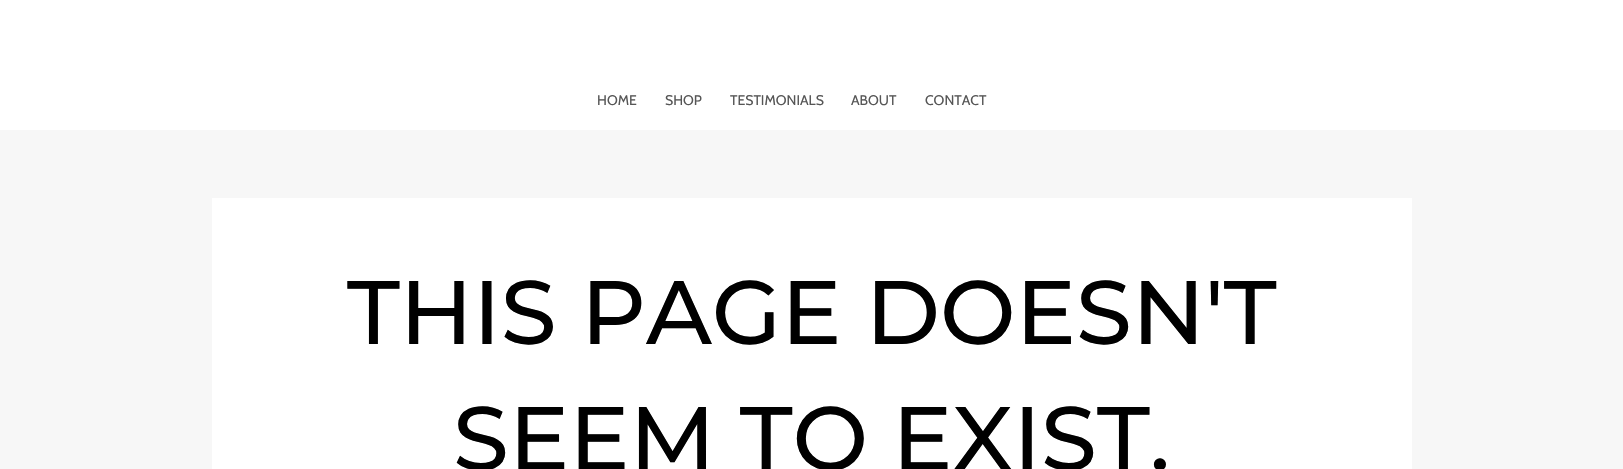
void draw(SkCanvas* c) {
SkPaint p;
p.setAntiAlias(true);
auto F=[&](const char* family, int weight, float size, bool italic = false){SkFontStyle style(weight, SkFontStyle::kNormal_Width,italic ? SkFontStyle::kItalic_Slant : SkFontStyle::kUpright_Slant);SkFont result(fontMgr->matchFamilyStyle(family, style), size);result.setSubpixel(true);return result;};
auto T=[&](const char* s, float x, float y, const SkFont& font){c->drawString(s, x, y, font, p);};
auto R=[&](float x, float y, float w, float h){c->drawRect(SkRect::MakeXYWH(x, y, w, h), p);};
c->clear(0xfff7f7f7);
p.setColor(0xffffffff);
R(0,0,1623,130);
auto f1 = F("Cabin",400,14);
p.setColor(0xff565656);
T("HOME",597,105,f1);
T("SHOP",665,105,f1);
T("TESTIMONIALS",730,105,f1);
T("ABOUT",851,105,f1);
T("CONTACT",925,105,f1);
p.setColor(0xffffffff);
R(212,198,1200,271);
auto f2 = F("Montserrat",500,90);
p.setColor(0xff000000);
T("THIS PAGE DOESN'T",347,344,f2);
T("SEEM TO EXIST.",453,470,f2);
}
